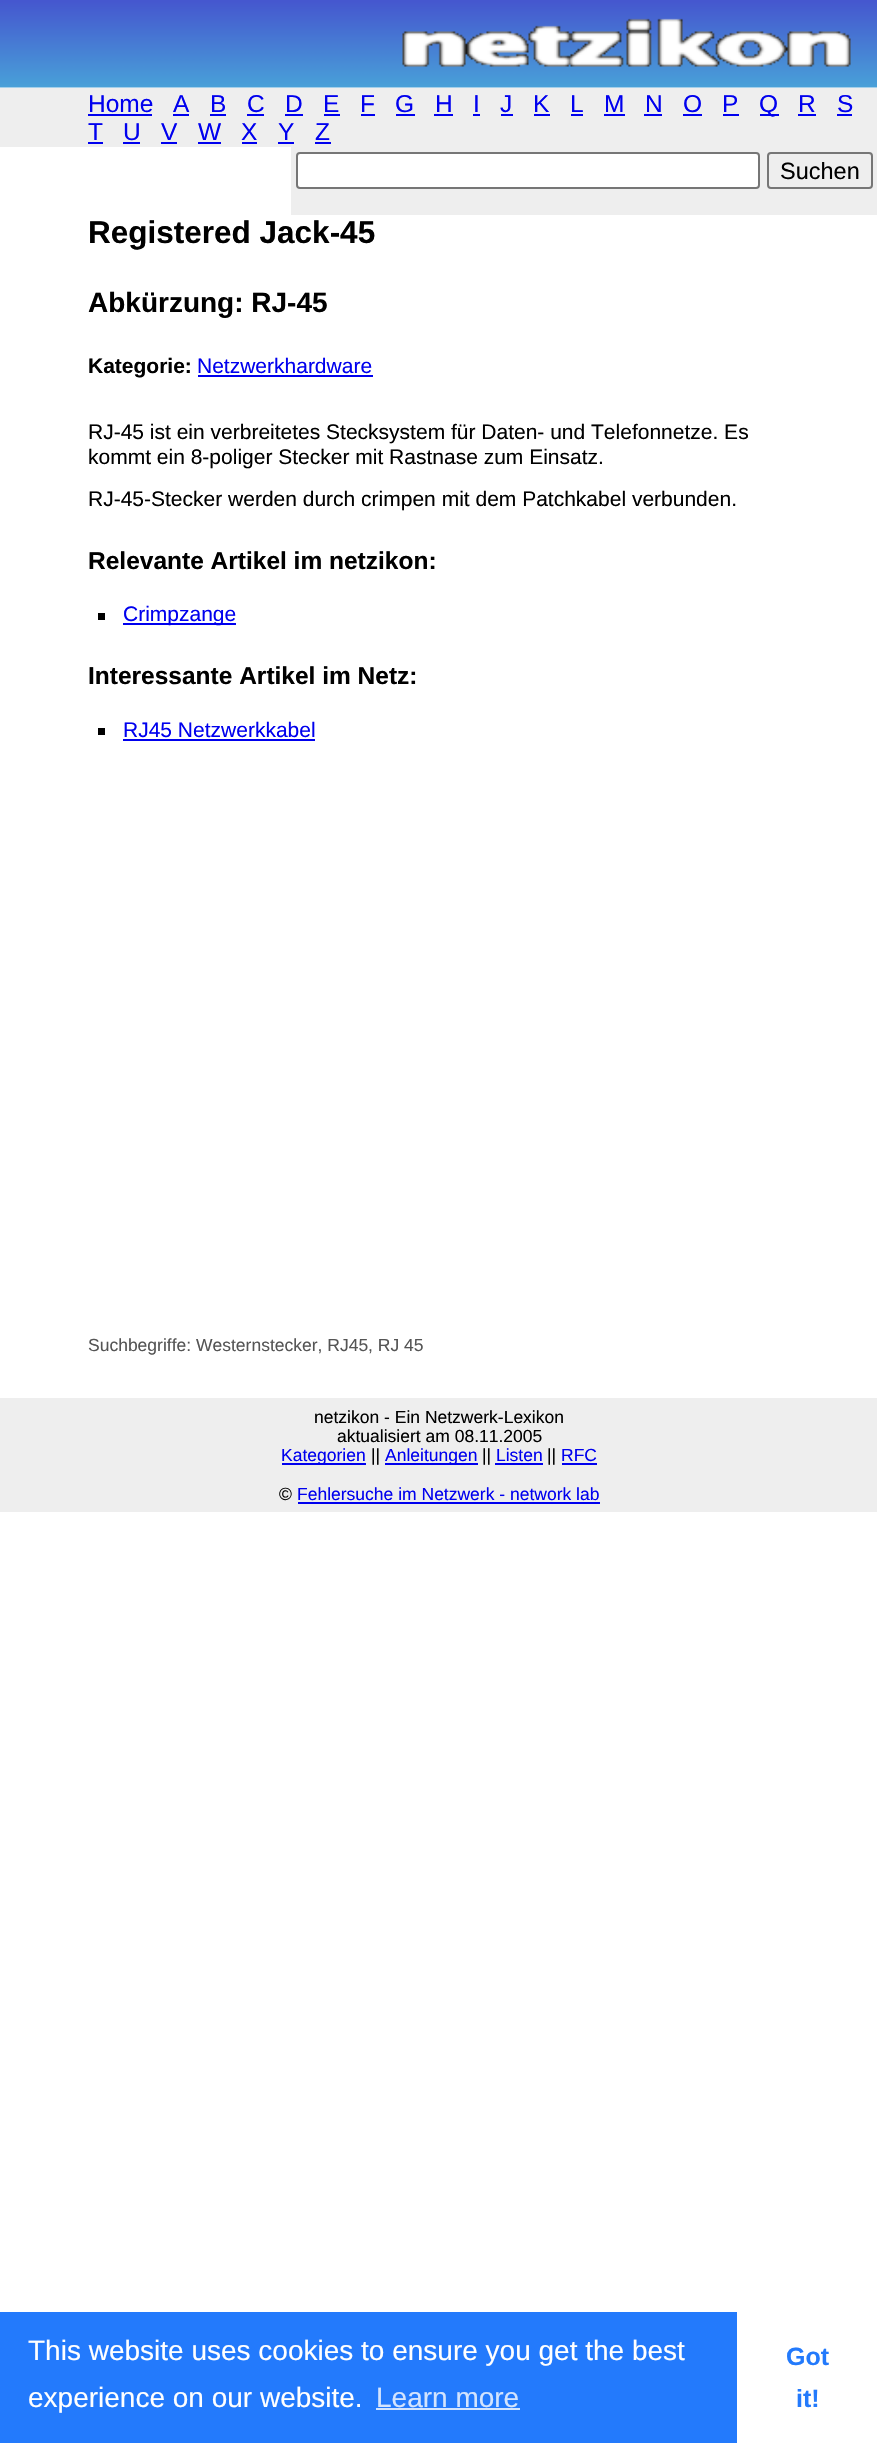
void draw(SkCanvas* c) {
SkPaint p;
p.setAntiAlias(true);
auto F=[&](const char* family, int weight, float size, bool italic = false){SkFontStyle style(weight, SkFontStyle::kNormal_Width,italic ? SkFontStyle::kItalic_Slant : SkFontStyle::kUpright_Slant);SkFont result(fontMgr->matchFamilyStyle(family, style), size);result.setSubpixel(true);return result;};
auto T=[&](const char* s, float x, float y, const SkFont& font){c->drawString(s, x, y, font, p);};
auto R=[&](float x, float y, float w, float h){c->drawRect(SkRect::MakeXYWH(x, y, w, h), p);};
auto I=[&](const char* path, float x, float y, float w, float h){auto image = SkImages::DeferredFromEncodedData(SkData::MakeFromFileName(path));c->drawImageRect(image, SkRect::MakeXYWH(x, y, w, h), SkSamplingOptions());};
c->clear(0xffffffff);
I("1.png",0,0,877,88);
I("2.png",402,18,449,49);
p.setColor(0xffeeeeee);
R(0,88,877,59);
auto f1 = F("Liberation Sans",400,24.5);
p.setColor(0xff0000ee);
T("Home",88,112,f1);
R(88,114,64,2);
T("A",173,112,f1);
R(173,114,16,2);
T("B",210,112,f1);
R(210,114,16,2);
T("C",247,112,f1);
R(247,114,17,2);
T("D",285,112,f1);
R(285,114,18,2);
T("E",323,112,f1);
R(324,114,16,2);
T("F",360,112,f1);
R(361,114,14,2);
T("G",395,112,f1);
R(396,114,19,2);
T("H",435,112,f1);
R(434,114,19,2);
T("I",473,112,f1);
R(473,114,7,2);
T("J",500,112,f1);
R(501,114,12,2);
T("K",533,112,f1);
R(534,114,16,2);
T("L",570,112,f1);
R(571,114,12,2);
T("M",604,112,f1);
R(604,114,21,2);
T("N",645,112,f1);
R(644,114,18,2);
T("O",683,112,f1);
R(683,114,19,2);
T("P",722,112,f1);
R(723,114,16,2);
R(760,114,19,2);
T("Q",759,112,f1);
T("R",798,112,f1);
R(798,114,18,2);
T("S",837,112,f1);
R(837,114,15,2);
T("T",88,140,f1);
R(88,142,15,2);
T("U",123,140,f1);
R(123,142,17,2);
T("V",161,140,f1);
R(161,142,16,2);
T("W",198,140,f1);
R(198,142,23,2);
T("X",241,140,f1);
R(242,142,15,2);
T("Y",278,140,f1);
R(278,142,16,2);
T("Z",315,140,f1);
R(315,142,16,2);
p.setColor(0xffeeeeee);
R(291,147,586,68);
p.setColor(0xffffffff);
c->drawRoundRect(SkRect::MakeXYWH(297,153,462,35),3,3,p);
p.setStroke(true);
p.setStrokeWidth(2);
p.setColor(0xff767676);
c->drawRoundRect(SkRect::MakeXYWH(297,153,462,35),3,3,p);
c->drawRoundRect(SkRect::MakeXYWH(768,153,104,35),3,3,p);
auto f2 = F("Liberation Sans",400,23.5);
p.setStroke(false);
p.setColor(0xff000000);
T("Suchen",780,179,f2);
auto f3 = F("Liberation Sans",700,31.5);
T("Registered Jack-45",88,243,f3);
auto f4 = F("Liberation Sans",700,28);
T("Abkürzung: RJ-45",88,312,f4);
auto f5 = F("Liberation Sans",700,21);
T("Kategorie:",88,373,f5);
auto f6 = F("Liberation Sans",400,21);
p.setColor(0xff0000ee);
T("Netzwerkhardware",197,373,f6);
R(198,375,175,2);
p.setColor(0xff000000);
T("RJ-45 ist ein verbreitetes Stecksystem für Daten- und Telefonnetze. Es",88,439,f6);
T("kommt ein 8-poliger Stecker mit Rastnase zum Einsatz.",88,464,f6);
T("RJ-45-Stecker werden durch crimpen mit dem Patchkabel verbunden.",88,506,f6);
auto f7 = F("Liberation Sans",700,24.5);
T("Relevante Artikel im netzikon:",88,569,f7);
R(98,613,7,7);
p.setColor(0xff0000ee);
R(123,623,113,2);
T("Crimpzange",123,621,f6);
p.setColor(0xff000000);
T("Interessante Artikel im Netz:",88,684,f7);
R(98,728,7,7);
p.setColor(0xff0000ee);
T("RJ45 Netzwerkkabel",123,737,f6);
R(123,739,192,2);
auto f8 = F("Liberation Sans",400,17.5);
p.setColor(0xff555555);
T("Suchbegriffe: Westernstecker, RJ45, RJ 45",88,1351,f8);
p.setColor(0xffeeeeee);
R(0,1398,877,114);
p.setColor(0xff000000);
T("netzikon - Ein Netzwerk-Lexikon",314,1423,f8);
T("aktualisiert am 08.11.2005",337,1442,f8);
p.setColor(0xff0000ee);
R(282,1463,84,2);
T("Kategorien",281,1461,f8);
p.setColor(0xff000000);
T("||",371,1461,f8);
p.setColor(0xff0000ee);
R(385,1463,93,2);
T("Anleitungen",385,1461,f8);
p.setColor(0xff000000);
T("||",482,1461,f8);
p.setColor(0xff0000ee);
T("Listen",496,1461,f8);
R(495,1463,48,2);
p.setColor(0xff000000);
T("||",547,1461,f8);
p.setColor(0xff0000ee);
T("RFC",561,1461,f8);
R(562,1463,35,2);
p.setColor(0xff000000);
T("©",279,1500,f8);
p.setColor(0xff0000ee);
T("Fehlersuche im Netzwerk - network lab",297,1500,f8);
R(298,1502,302,2);
p.setColor(0xff237afc);
R(0,2312,737,131);
auto f9 = F("Liberation Sans",400,28);
p.setColor(0xffffffff);
T("This website uses cookies to ensure you get the best",28,2360,f9);
T("experience on our website.",28,2407,f9);
p.setColor(0xffd3e4fe);
T("Learn more",376,2407,f9);
R(376,2408,144,2);
auto f10 = F("Liberation Sans",700,25);
p.setColor(0xff237afc);
T("Got",786,2365,f10);
T("it!",796,2407,f10);
}
